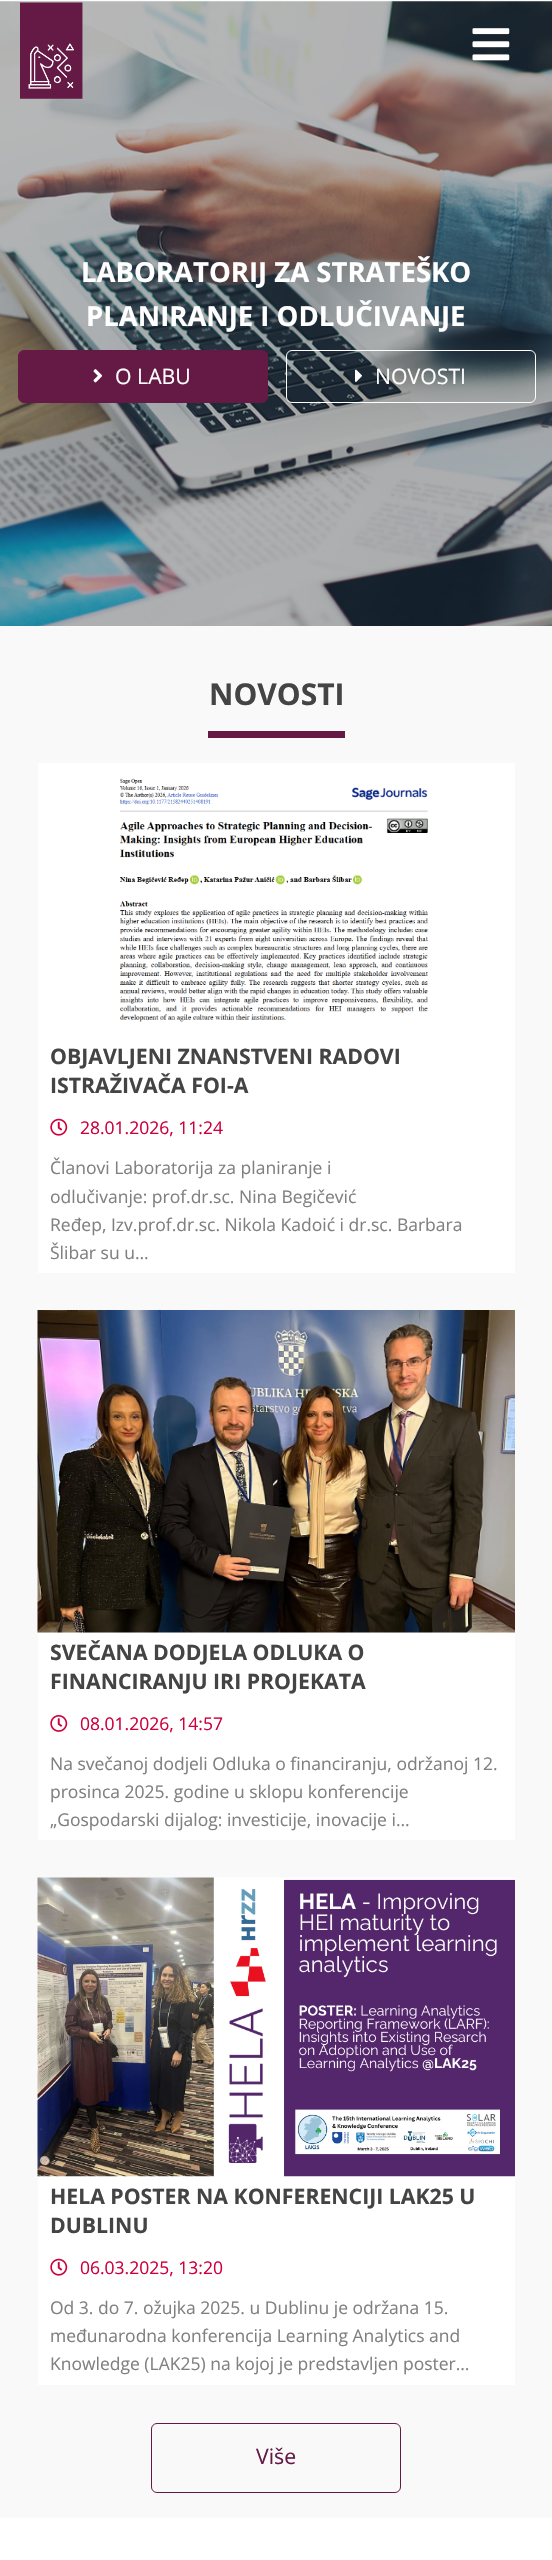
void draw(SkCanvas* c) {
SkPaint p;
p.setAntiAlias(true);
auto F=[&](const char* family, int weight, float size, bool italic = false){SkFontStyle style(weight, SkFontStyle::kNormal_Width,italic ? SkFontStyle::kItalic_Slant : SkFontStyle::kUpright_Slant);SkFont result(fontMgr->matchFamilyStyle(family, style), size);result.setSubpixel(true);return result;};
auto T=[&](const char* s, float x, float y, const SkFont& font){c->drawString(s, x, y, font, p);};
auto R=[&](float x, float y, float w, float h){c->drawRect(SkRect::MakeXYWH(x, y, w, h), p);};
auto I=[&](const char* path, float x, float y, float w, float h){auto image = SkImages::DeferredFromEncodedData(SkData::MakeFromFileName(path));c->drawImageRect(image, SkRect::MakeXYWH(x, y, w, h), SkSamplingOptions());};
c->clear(0xffffffff);
p.setColor(0xfffcfcfc);
R(0,0,552,1);
I("3.png",0,1,552,625);
I("1.png",20,2,63,97);
I("2.png",472,28,38,33);
auto f1 = F("Open Sans",700,27.5);
p.setColor(0xffffffff);
T("LABORATORIJ ZA STRATEŠKO",81,282,f1);
T("PLANIRANJE I ODLUČIVANJE",86,326,f1);
p.setColor(0xff641a45);
c->drawRoundRect(SkRect::MakeXYWH(18.5,350.5,249,52),5.5,5.5,p);
p.setStroke(true);
p.setStrokeWidth(1);
c->drawRoundRect(SkRect::MakeXYWH(18.5,350.5,249,52),5.5,5.5,p);
I("4.png",93,369,10,14);
auto f2 = F("Open Sans",400,21.25);
p.setStroke(false);
p.setColor(0xffffffff);
T("O LABU",115,384,f2);
p.setStroke(true);
c->drawRoundRect(SkRect::MakeXYWH(286.5,350.5,249,52),5.5,5.5,p);
I("5.png",355,369,7,13);
p.setStroke(false);
T("NOVOSTI",375,384,f2);
p.setColor(0xfff9f9f9);
R(0,626,552,1892);
auto f3 = F("Open Sans",700,30);
p.setColor(0xff444444);
T("NOVOSTI",209,705,f3);
p.setColor(0xff641a45);
R(208,731,137,7);
I("6.png",38,763,477,273);
p.setColor(0xffffffff);
R(38,1036,477,237);
auto f4 = F("Open Sans",700,21.25);
p.setColor(0xff444444);
T("OBJAVLJENI ZNANSTVENI RADOVI",50,1064,f4);
T("ISTRAŽIVAČA FOI-A",50,1093,f4);
I("7.png",50,1118,18,18);
auto f5 = F("Open Sans",400,17.5);
p.setColor(0xffce003d);
T("28.01.2026, 11:24",80,1134,f5);
p.setColor(0xff808080);
T("Članovi Laboratorija za planiranje i",50,1174,f5);
T("odlučivanje: prof.dr.sc. Nina Begičević",50,1203,f5);
T("Ređep, Izv.prof.dr.sc. Nikola Kadoić i dr.sc. Barbara",50,1231,f5);
T("Šlibar su u…",50,1259,f5);
I("8.png",37,1310,478,323);
p.setColor(0xffffffff);
R(38,1633,477,207);
p.setColor(0xff444444);
T("SVEČANA DODJELA ODLUKA O",50,1660,f4);
T("FINANCIRANJU IRI PROJEKATA",50,1689,f4);
I("9.png",50,1715,18,17);
p.setColor(0xffce003d);
T("08.01.2026, 14:57",80,1730,f5);
p.setColor(0xff808080);
T("Na svečanoj dodjeli Odluka o financiranju, održanoj 12.",50,1770,f5);
T("prosinca 2025. godine u sklopu konferencije",50,1798,f5);
T("„Gospodarski dijalog: investicije, inovacije i…",50,1826,f5);
p.setColor(0xffffffff);
R(38,2176,477,209);
I("10.png",37,1877,478,300);
p.setColor(0xff444444);
T("HELA POSTER NA KONFERENCIJI LAK25 U",50,2204,f4);
T("DUBLINU",50,2233,f4);
I("7.png",50,2258,18,18);
p.setColor(0xffce003d);
T("06.03.2025, 13:20",80,2274,f5);
p.setColor(0xff808080);
T("Od 3. do 7. ožujka 2025. u Dublinu je održana 15.",50,2314,f5);
T("međunarodna konferencija Learning Analytics and",50,2342,f5);
T("Knowledge (LAK25) na kojoj je predstavljen poster…",50,2370,f5);
p.setStroke(true);
p.setColor(0xff641a45);
c->drawRoundRect(SkRect::MakeXYWH(151.5,2423.5,249,69),5.5,5.5,p);
p.setStroke(false);
T("Više",256,2464,f2);
}
